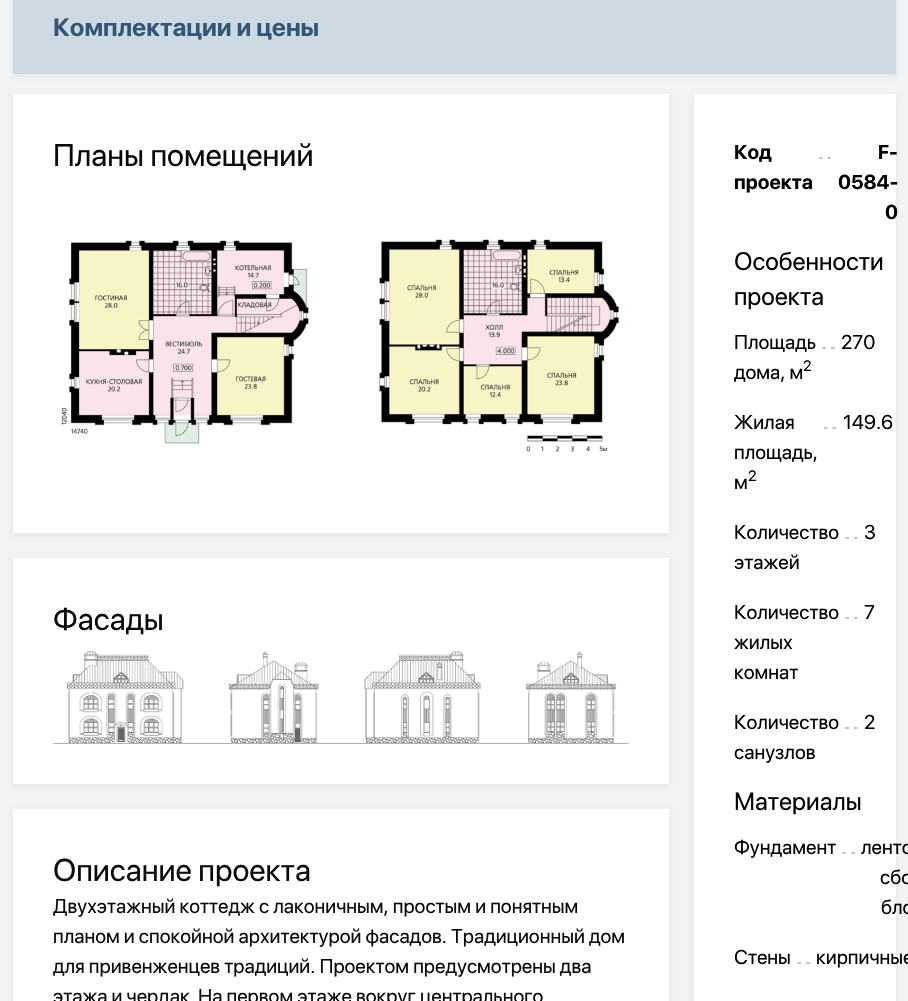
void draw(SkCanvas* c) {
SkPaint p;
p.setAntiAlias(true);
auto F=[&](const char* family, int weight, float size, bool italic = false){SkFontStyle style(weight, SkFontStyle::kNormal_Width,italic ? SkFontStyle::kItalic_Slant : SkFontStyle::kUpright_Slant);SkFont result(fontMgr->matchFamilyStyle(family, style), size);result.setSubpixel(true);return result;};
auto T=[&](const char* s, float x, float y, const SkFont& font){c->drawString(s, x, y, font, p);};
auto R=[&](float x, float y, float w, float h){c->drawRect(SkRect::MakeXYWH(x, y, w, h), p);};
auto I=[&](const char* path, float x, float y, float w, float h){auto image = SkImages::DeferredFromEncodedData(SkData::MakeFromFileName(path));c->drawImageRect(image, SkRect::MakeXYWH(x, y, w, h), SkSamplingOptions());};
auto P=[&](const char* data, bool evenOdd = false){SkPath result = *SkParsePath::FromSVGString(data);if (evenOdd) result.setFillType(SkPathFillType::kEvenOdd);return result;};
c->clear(0xfff1f3f5);
p.setColor(0x12000000);
p.setMaskFilter(SkMaskFilter::MakeBlur(kNormal_SkBlurStyle, 2.5));
c->drawRect(SkRect::MakeXYWH(13,-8,883,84),p);
p.setMaskFilter(nullptr);
p.setColor(0xffcddae4);
R(13,0,883,74);
auto f1 = F("SF Pro Display",700,25);
p.setColor(0xff335676);
T("Комплектации и цены",53,36,f1);
p.setColor(0x12000000);
p.setMaskFilter(SkMaskFilter::MakeBlur(kNormal_SkBlurStyle, 2.5));
c->drawRect(SkRect::MakeXYWH(13,96,656,439),p);
p.setMaskFilter(nullptr);
p.setColor(0xffffffff);
R(13,94,656,439);
auto f2 = F("SF Pro Display",400,31.25);
p.setColor(0xff0a0a0a);
T("Планы помещений",53,166,f2);
I("1.png",61,239,558,213);
p.setColor(0x12000000);
p.setMaskFilter(SkMaskFilter::MakeBlur(kNormal_SkBlurStyle, 2.5));
c->drawRect(SkRect::MakeXYWH(13,560,656,226),p);
p.setMaskFilter(nullptr);
p.setColor(0xffffffff);
R(13,558,656,226);
p.setColor(0xff0a0a0a);
T("Фасады",53,630,f2);
I("2.png",53,651,576,93);
p.setColor(0x12000000);
p.setMaskFilter(SkMaskFilter::MakeBlur(kNormal_SkBlurStyle, 2.5));
c->drawRect(SkRect::MakeXYWH(13,811,656,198),p);
p.setMaskFilter(nullptr);
p.setColor(0xffffffff);
R(13,809,656,192);
p.setColor(0xff0a0a0a);
T("Описание проекта",53,881,f2);
auto f3 = F("SF Pro Display",400,20);
T("Двухэтажный коттедж с лаконичным, простым и понятным",53,913,f3);
T("планом и спокойной архитектурой фасадов. Традиционный дом",53,943,f3);
T("для привенженцев традиций. Проектом предусмотрены два",53,973,f3);
T("этажа и чердак",53,1003,f3);
T("На первом этаже вокруг центрального",198,1003,f3);
p.setColor(0x12000000);
p.setMaskFilter(SkMaskFilter::MakeBlur(kNormal_SkBlurStyle, 2.5));
c->drawRect(SkRect::MakeXYWH(694,96,202,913),p);
p.setMaskFilter(nullptr);
p.setColor(0xffffffff);
R(694,94,202,907);
auto f4 = F("SF Pro Display",700,20);
p.setColor(0xff000000);
T("Код",734,159,f4);
T("проекта",734,189,f4);
p.setStroke(true);
p.setStrokeWidth(1.2);
p.setColor(0xff8a8a8a);
c->drawPath(P("M819 158h3.5m5 0h3.5"),p);
p.setStroke(false);
p.setColor(0xff000000);
T("F-",878,159,f4);
T("0584-",838,189,f4);
T("0",885,219,f4);
auto f5 = F("SF Pro Display",400,25);
T("Особенности",734,270,f5);
T("проекта",734,305,f5);
T("Площадь",734,349,f3);
auto f6 = F("SF Pro Display",400,15);
T("2",803,371,f6);
T("дома, м",734,379,f3);
p.setStroke(true);
p.setColor(0xff8a8a8a);
c->drawPath(P("M822.5 348h3.5m5 0h4"),p);
p.setStroke(false);
p.setColor(0xff000000);
T("270",841,349,f3);
T("Жилая",734,429,f3);
T("площадь,",734,459,f3);
T("2",748,481,f6);
T("м",734,489,f3);
p.setStroke(true);
p.setColor(0xff8a8a8a);
c->drawPath(P("M824 428h3.5m5 0h3.5"),p);
p.setStroke(false);
p.setColor(0xff000000);
T("149.6",843,429,f3);
T("Количество",734,539,f3);
T("этажей",734,569,f3);
p.setStroke(true);
p.setColor(0xff8a8a8a);
c->drawPath(P("M845 538h4m5 0h3.5"),p);
p.setStroke(false);
p.setColor(0xff000000);
T("3",864,539,f3);
T("Количество",734,619,f3);
T("жилых",734,649,f3);
T("комнат",734,679,f3);
p.setStroke(true);
p.setColor(0xff8a8a8a);
c->drawPath(P("M845 618h4m5 0h3.5"),p);
p.setStroke(false);
p.setColor(0xff000000);
T("7",864,619,f3);
T("Количество",734,729,f3);
T("санузлов",734,759,f3);
p.setStroke(true);
p.setColor(0xff8a8a8a);
c->drawPath(P("M845 728h4m5 0h3.5"),p);
p.setStroke(false);
p.setColor(0xff000000);
T("2",864,729,f3);
T("Материалы",734,810,f5);
T("Фундамент",734,854,f3);
p.setStroke(true);
p.setColor(0xff8a8a8a);
c->drawPath(P("M842.5 853h3.5m5 0h4"),p);
p.setStroke(false);
p.setColor(0xff000000);
T("ленто",861,854,f3);
T("сбо",880,884,f3);
T("бло",881,914,f3);
T("Стены",734,964,f3);
p.setStroke(true);
p.setColor(0xff8a8a8a);
c->drawPath(P("M797.5 963h3.5m5 0h4"),p);
p.setStroke(false);
p.setColor(0xff000000);
T("кирпичные",816,964,f3);
}
